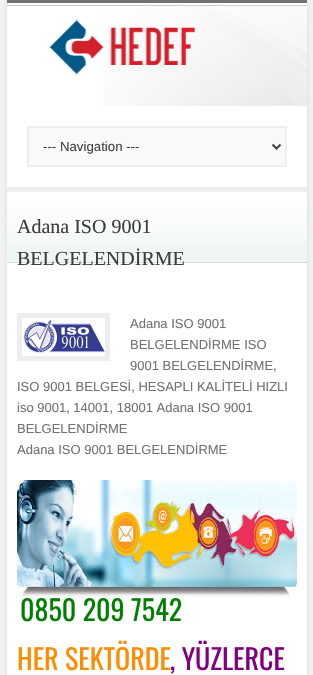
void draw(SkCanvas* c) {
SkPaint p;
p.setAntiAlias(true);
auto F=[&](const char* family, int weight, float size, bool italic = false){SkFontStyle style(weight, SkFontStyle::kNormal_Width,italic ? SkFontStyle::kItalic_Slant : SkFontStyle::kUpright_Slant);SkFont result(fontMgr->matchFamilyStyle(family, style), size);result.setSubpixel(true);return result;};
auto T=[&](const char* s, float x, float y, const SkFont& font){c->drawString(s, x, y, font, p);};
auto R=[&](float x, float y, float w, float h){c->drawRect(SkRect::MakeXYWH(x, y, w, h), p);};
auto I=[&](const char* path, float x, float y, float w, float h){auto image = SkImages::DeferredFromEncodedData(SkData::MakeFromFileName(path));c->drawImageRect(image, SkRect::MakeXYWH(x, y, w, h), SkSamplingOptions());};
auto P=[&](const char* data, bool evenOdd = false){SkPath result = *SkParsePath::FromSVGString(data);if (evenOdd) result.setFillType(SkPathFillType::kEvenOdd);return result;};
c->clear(0xfff3f3f3);
p.setColor(0x1a000000);
p.setMaskFilter(SkMaskFilter::MakeBlur(kNormal_SkBlurStyle, 2.5));
c->drawRect(SkRect::MakeXYWH(7,0,300,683),p);
p.setMaskFilter(nullptr);
p.setColor(0xffffffff);
R(7,3,300,672);
p.setColor(0xff727272);
R(7,0,300,3);
p.setColor(0xffcccccc);
R(7,5,300,1);
I("1.png",103,6,204,100);
I("2.png",49,19,146,56);
p.setColor(0xfff9f9f9);
c->drawRect(SkRect::MakeXYWH(28,127,258,39),p);
p.setStroke(true);
p.setStrokeWidth(2);
p.setColor(0xffeeeeee);
c->drawRect(SkRect::MakeXYWH(28,127,258,39),p);
p.setColor(0xff434343);
c->drawPath(P("M272.5 144.5l4 4l4-4"),p);
auto f1 = F("Liberation Sans",400,13.25);
p.setStroke(false);
T("--- Navigation ---",43,151,f1);
p.setColor(0xffeff6f4);
R(7,243,300,19);
I("3.png",7,192,300,51);
p.setColor(0xffeeeeee);
R(7,187,300,5);
p.setColor(0xffdbdbdb);
R(7,262,300,1);
auto f2 = F("Liberation Serif",400,20);
p.setColor(0xff3c3c3c);
T("Adana ISO 9001",17,233,f2);
T("BELGELENDİRME",17,265,f2);
p.setStroke(true);
p.setStrokeWidth(5);
p.setColor(0xffeeeeee);
c->drawRect(SkRect::MakeXYWH(19.5,315.5,88,43),p);
I("4.png",22,318,83,36);
auto f3 = F("Liberation Sans",400,13);
p.setStroke(false);
p.setColor(0xff727272);
T("Adana ISO 9001",130,328,f3);
T("BELGELENDİRME ISO",130,349,f3);
T("9001 BELGELENDİRME,",130,370,f3);
T("ISO 9001 BELGESİ, HESAPLI KALİTELİ HIZLI",17,391,f3);
T("iso 9001, 14001, 18001 Adana ISO 9001",17,412,f3);
T("BELGELENDİRME",17,433,f3);
T("Adana ISO 9001 BELGELENDİRME",17,454,f3);
I("5.png",17,480,280,117);
auto f4 = F("Oswald",400,28);
p.setColor(0xff008000);
T("0850 209 7542",20,621,f4);
p.setColor(0xffff8c00);
T("HER SEKTÖRDE",17,670,f4);
p.setColor(0xff800080);
T(", YÜZLERCE",170,670,f4);
}
